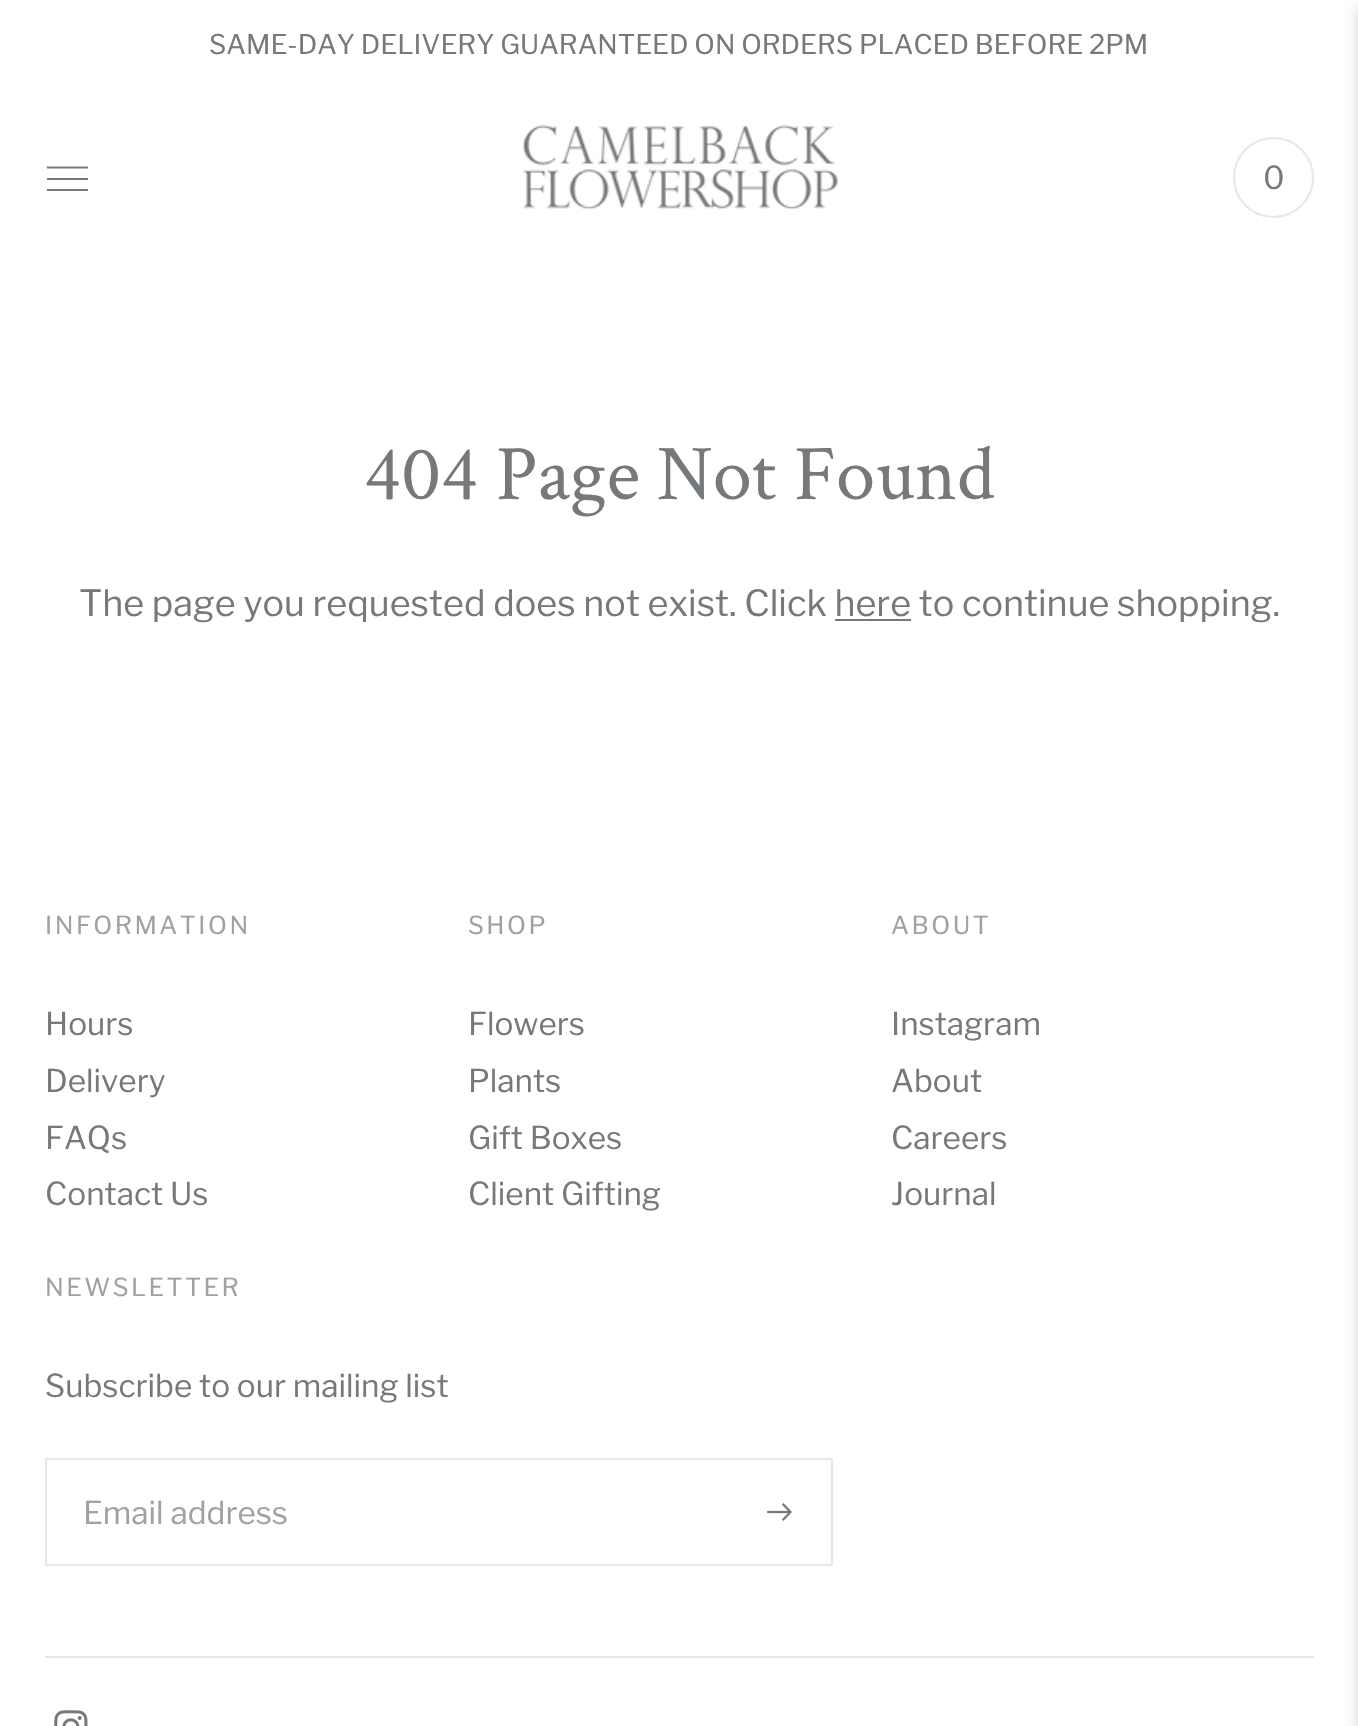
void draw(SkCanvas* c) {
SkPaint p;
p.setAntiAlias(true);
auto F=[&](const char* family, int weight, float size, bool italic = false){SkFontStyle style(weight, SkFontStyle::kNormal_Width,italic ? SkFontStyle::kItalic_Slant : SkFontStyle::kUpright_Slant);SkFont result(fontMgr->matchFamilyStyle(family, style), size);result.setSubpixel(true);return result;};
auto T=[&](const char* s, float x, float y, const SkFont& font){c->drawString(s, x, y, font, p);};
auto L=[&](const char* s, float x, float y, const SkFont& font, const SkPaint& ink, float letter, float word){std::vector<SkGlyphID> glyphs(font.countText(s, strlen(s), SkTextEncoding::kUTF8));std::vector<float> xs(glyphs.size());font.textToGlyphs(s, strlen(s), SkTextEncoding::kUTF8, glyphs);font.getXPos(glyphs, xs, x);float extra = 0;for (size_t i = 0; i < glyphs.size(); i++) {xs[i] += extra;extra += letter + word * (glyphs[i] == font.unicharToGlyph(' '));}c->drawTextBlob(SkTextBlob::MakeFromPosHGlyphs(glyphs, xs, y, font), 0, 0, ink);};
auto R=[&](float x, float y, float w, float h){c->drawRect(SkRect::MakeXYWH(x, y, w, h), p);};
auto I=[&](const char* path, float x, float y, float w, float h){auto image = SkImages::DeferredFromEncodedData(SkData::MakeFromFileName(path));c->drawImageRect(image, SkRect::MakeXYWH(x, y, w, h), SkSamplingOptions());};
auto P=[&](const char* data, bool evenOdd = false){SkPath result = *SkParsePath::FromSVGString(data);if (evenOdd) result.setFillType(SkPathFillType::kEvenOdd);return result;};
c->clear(0xffffffff);
p.setColor(0x1a000000);
p.setMaskFilter(SkMaskFilter::MakeBlur(kNormal_SkBlurStyle, 7));
c->drawRect(SkRect::MakeXYWH(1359,9,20,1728),p);
p.setMaskFilter(nullptr);
auto f1 = F("Libre Franklin",400,27);
p.setColor(0xff76797b);
T("SAME-DAY DELIVERY GUARANTEED ON ORDERS PLACED BEFORE 2PM",209,54,f1);
p.setStroke(true);
p.setStrokeWidth(2.2);
c->drawPath(P("M47 167.5h41m-41 11.5h41m-41 11h41"),p);
I("1.png",522,124,316,86);
p.setStrokeWidth(2);
p.setColor(0xffe7e7e7);
c->drawCircle(1273.5,177.5,39.5,p);
auto f2 = F("Libre Franklin",400,31.5);
p.setStroke(false);
p.setColor(0xff76797b);
T("0",1263,189,f2);
p.setColor(0x1a000000);
p.setMaskFilter(SkMaskFilter::MakeBlur(kNormal_SkBlurStyle, 7));
c->drawRect(SkRect::MakeXYWH(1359,9,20,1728),p);
p.setMaskFilter(nullptr);
auto f3 = F("Crimson Text",400,78.75);
p.setColor(0xff76797b);
T("404 Page Not Found",364,499,f3);
auto f4 = F("Libre Franklin",400,36);
T("The page you requested does not exist. Click here to continue shopping.",79,616,f4);
R(835,619,76,2);
auto f5 = F("Libre Franklin",400,24.75);
p.setColor(0xff9fa1a3);
L("INFORMATION",45,934,f5,p,2.5,0);
p.setColor(0xff76797b);
T("Hours",45,1035,f2);
T("Delivery",45,1092,f2);
T("FAQs",45,1149,f2);
T("Contact Us",45,1205,f2);
p.setColor(0xff9fa1a3);
L("SHOP",468,934,f5,p,2.5,0);
p.setColor(0xff76797b);
T("Flowers",468,1035,f2);
T("Plants",468,1092,f2);
T("Gift Boxes",468,1149,f2);
T("Client Gifting",468,1205,f2);
p.setColor(0xff9fa1a3);
L("ABOUT",891,934,f5,p,2.5,0);
p.setColor(0xff76797b);
T("Instagram",891,1035,f2);
T("About",891,1092,f2);
T("Careers",891,1149,f2);
T("Journal",891,1205,f2);
p.setColor(0xff9fa1a3);
L("NEWSLETTER",45,1296,f5,p,2.5,0);
p.setColor(0xff76797b);
T("Subscribe to our mailing list",45,1397,f2);
p.setStroke(true);
p.setColor(0xffe7e7e7);
c->drawRect(SkRect::MakeXYWH(46,1459,786,106),p);
p.setStroke(false);
p.setColor(0xff9fa1a3);
T("Email address",83,1524,f2);
I("2.png",767,1503,25,18);
p.setColor(0xffe7e7e7);
R(45,1656,1269,2);
I("3.png",54,1710,34,16);
}
